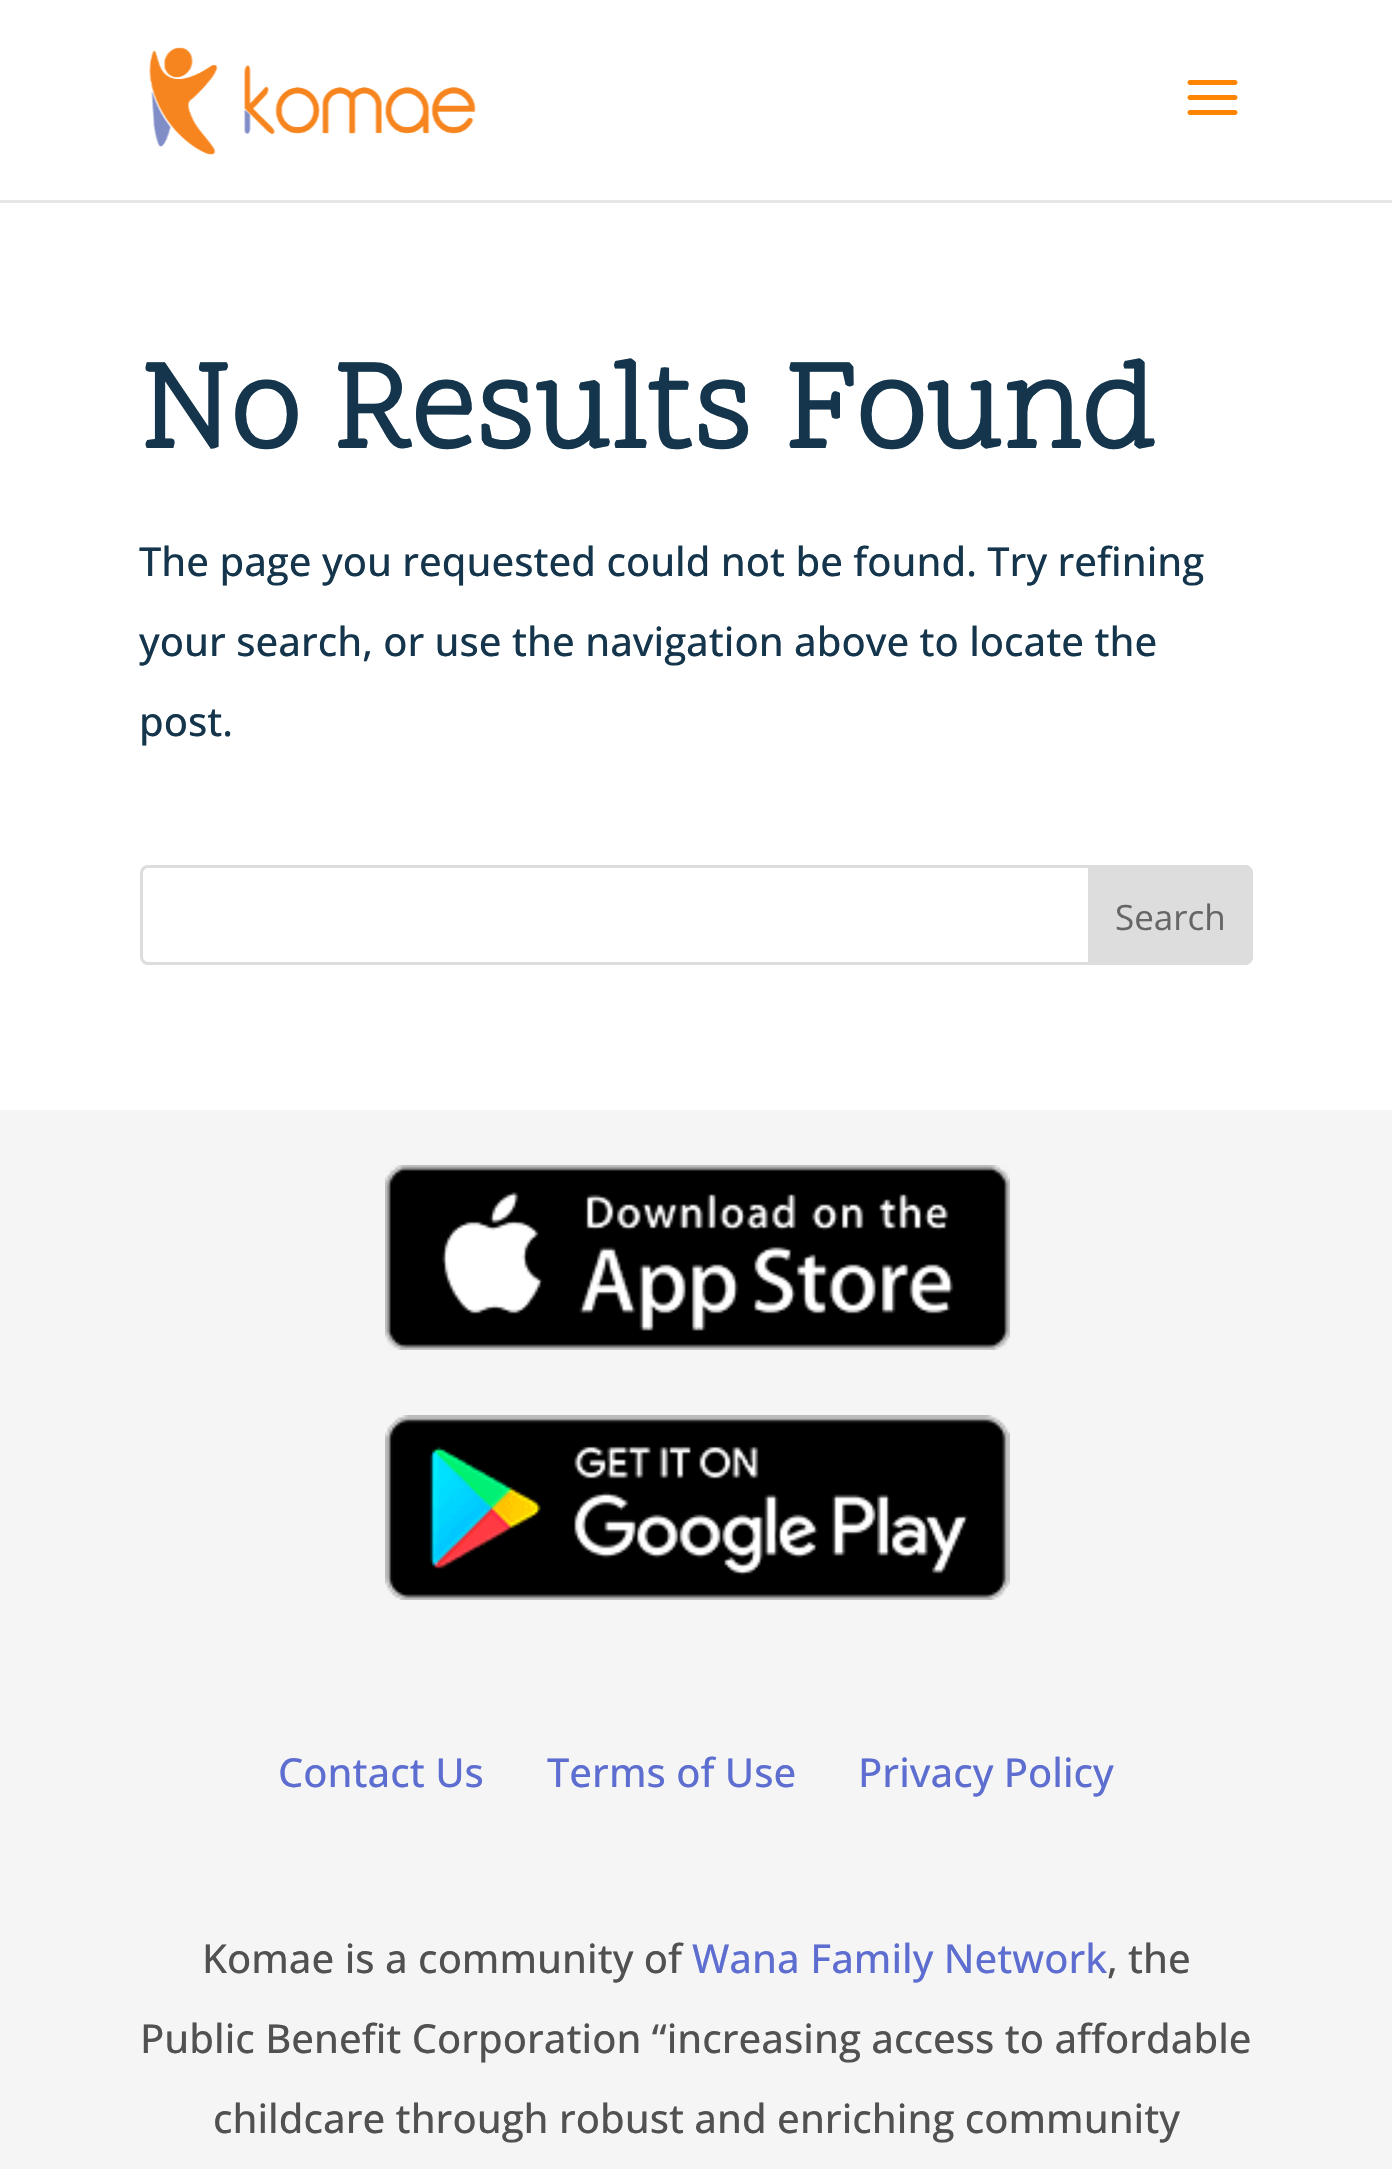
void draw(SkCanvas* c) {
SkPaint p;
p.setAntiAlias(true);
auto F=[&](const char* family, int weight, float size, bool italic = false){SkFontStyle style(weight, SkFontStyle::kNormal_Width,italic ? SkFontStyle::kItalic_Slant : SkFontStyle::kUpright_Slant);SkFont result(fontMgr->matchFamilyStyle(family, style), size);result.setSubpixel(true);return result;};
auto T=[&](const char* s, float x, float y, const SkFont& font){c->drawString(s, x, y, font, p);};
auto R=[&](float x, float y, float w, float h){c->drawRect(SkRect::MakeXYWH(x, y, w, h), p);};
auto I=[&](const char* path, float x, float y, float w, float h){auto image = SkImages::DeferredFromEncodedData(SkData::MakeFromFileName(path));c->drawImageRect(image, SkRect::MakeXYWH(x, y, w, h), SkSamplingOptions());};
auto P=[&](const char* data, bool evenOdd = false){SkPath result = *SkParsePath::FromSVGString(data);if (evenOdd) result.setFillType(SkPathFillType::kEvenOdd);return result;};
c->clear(0xffffffff);
p.setColor(0xffe6e6e6);
c->drawPath(P("M0 200v3h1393v-200h-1v197z"),p);
I("1.png",149,47,327,108);
I("2.png",1187,80,51,35);
auto f1 = F("Scope One",700,127.5);
p.setColor(0xff14354b);
T("No Results Found",139,448,f1);
auto f2 = F("Open Sans",500,40);
T("The page you requested could not be found. Try refining",139,576,f2);
T("your search, or use the navigation above to locate the",139,656,f2);
T("post.",139,736,f2);
p.setStroke(true);
p.setStrokeWidth(3);
p.setColor(0xffdddddd);
c->drawRoundRect(SkRect::MakeXYWH(141.5,866.5,1110,97),6.5,6.5,p);
p.setStroke(false);
c->drawPath(P("M1089.5 866.5h155.5c3.5 0 6.5 3 6.5 6.5v84c0 3.5-3 6.5-6.5 6.5h-155.5z"),p);
p.setStroke(true);
c->drawPath(P("M1089.5 866.5h155.5c3.5 0 6.5 3 6.5 6.5v84c0 3.5-3 6.5-6.5 6.5h-155.5z"),p);
auto f3 = F("Open Sans",400,35);
p.setStroke(false);
p.setColor(0xff666666);
T("Search",1115,930,f3);
p.setColor(0xfff5f5f5);
R(0,1110,1392,1059);
I("3.png",385,1165,625,185);
I("4.png",385,1415,625,185);
p.setColor(0xff5d6ed0);
T("Contact Us",278,1787,f2);
T("Terms of Use",547,1787,f2);
T("Privacy Policy",858,1787,f2);
p.setColor(0xff515151);
T("Komae is a community of",202,1973,f2);
p.setColor(0xff5d6ed0);
T("Wana Family Network",692,1973,f2);
p.setColor(0xff515151);
T(", the",1107,1973,f2);
T("Public Benefit Corporation “increasing access to affordable",140,2053,f2);
T("childcare through robust and enriching community",213,2133,f2);
}
